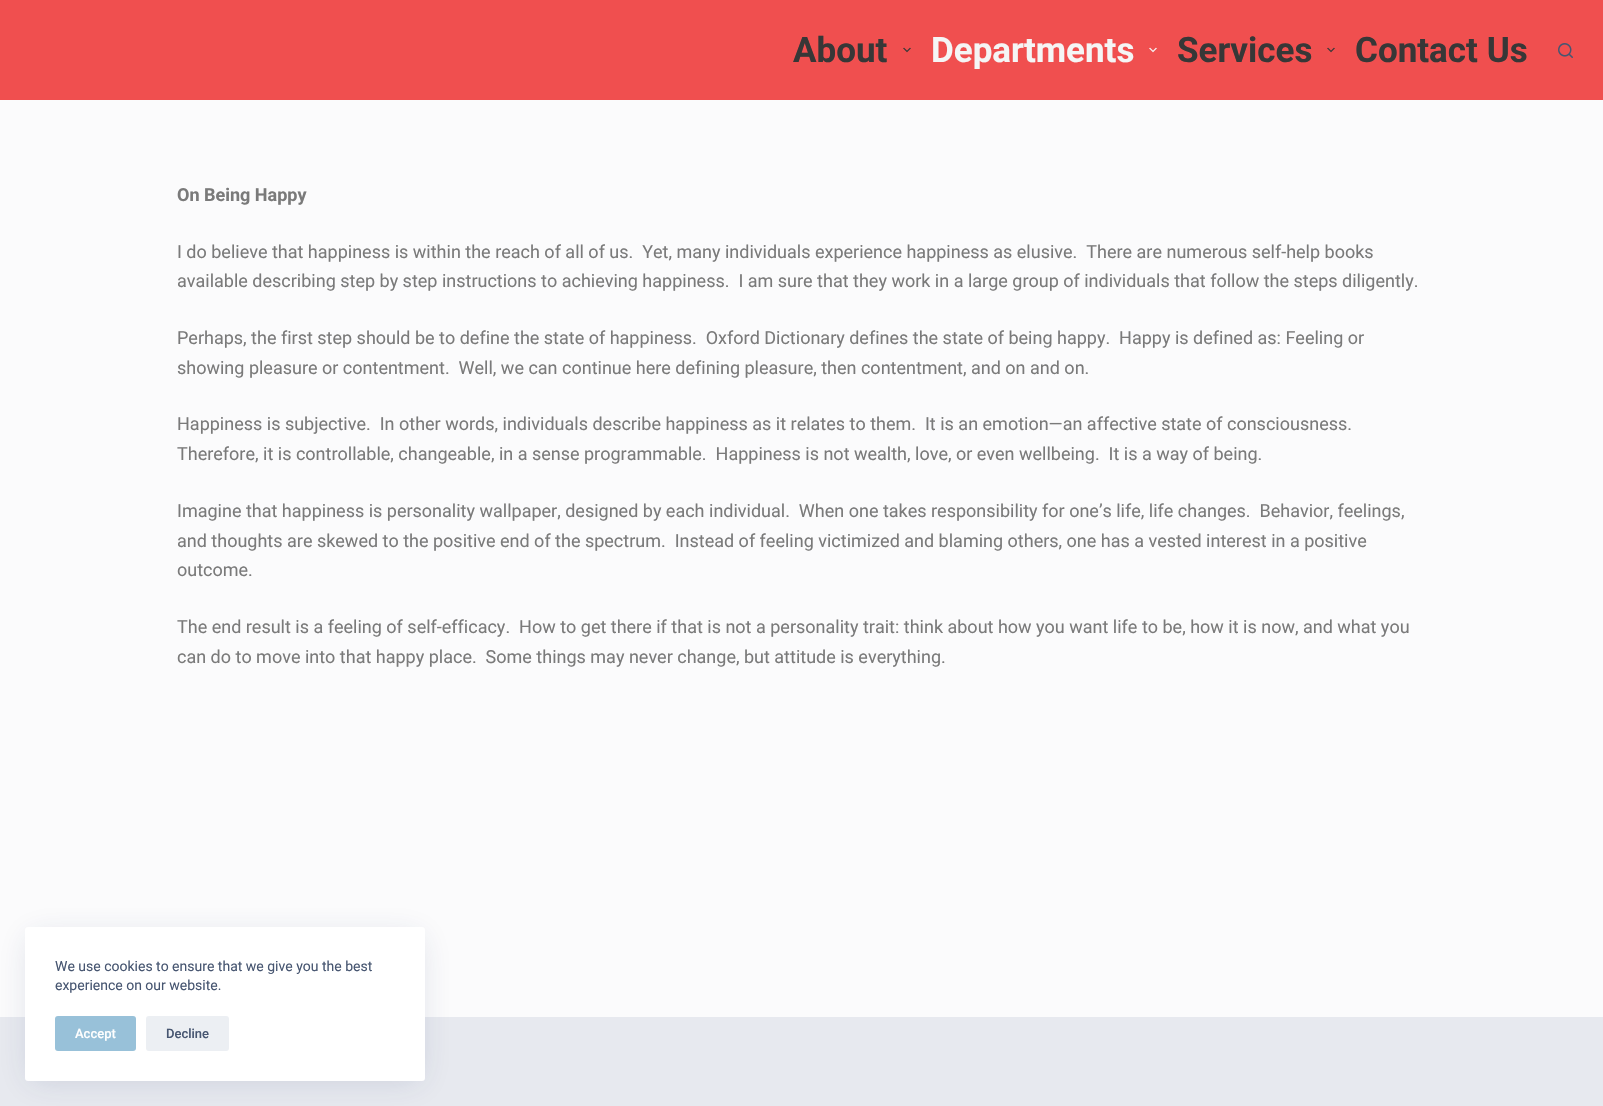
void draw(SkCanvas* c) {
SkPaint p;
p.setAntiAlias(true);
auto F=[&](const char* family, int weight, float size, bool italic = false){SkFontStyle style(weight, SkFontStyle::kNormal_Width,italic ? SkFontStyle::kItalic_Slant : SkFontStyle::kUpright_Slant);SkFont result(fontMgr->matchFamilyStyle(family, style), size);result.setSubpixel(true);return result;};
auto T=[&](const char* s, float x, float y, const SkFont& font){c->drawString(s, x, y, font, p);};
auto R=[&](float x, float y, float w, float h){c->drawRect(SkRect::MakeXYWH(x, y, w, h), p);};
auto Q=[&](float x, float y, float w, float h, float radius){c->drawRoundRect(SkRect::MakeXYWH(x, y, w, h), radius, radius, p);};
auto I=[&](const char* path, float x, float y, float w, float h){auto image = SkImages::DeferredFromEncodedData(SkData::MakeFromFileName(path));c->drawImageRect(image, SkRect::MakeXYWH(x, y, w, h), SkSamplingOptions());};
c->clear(0xfffbfbfc);
p.setColor(0xfff04f4f);
R(0,0,1603,100);
auto f1 = F("Roboto",700,35);
p.setColor(0xff373737);
T("About",793,62,f1);
I("1.png",903,47,8,6);
p.setColor(0xfff5f5f5);
T("Departments",931,62,f1);
I("2.png",1149,47,8,6);
p.setColor(0xff373737);
T("Services",1177,62,f1);
I("1.png",1327,47,8,6);
T("Contact Us",1355,62,f1);
I("3.png",1558,43,15,15);
auto f2 = F("Roboto",700,18);
p.setColor(0xff7a7a7a);
T("On Being Happy",177,201,f2);
auto f3 = F("Roboto",400,18);
T("I do believe that happiness is within the reach of all of us.  Yet, many individuals experience happiness as elusive.  There are numerous self-help books",177,258,f3);
T("available describing step by step instructions to achieving happiness.  I am sure that they work in a large group of individuals that follow the steps diligently.",177,287,f3);
T("Perhaps, the first step should be to define the state of happiness.  Oxford Dictionary defines the state of being happy.  Happy is defined as: Feeling or",177,344,f3);
T("showing pleasure or contentment.  Well, we can continue here defining pleasure, then contentment, and on and on.",177,374,f3);
T("Happiness is subjective.  In other words, individuals describe happiness as it relates to them.  It is an emotion—an affective state of consciousness.",177,430,f3);
T("Therefore, it is controllable, changeable, in a sense programmable.  Happiness is not wealth, love, or even wellbeing.  It is a way of being.",177,460,f3);
T("Imagine that happiness is personality wallpaper, designed by each individual.  When one takes responsibility for one’s life, life changes.  Behavior, feelings,",177,517,f3);
T("and thoughts are skewed to the positive end of the spectrum.  Instead of feeling victimized and blaming others, one has a vested interest in a positive",177,547,f3);
T("outcome.",177,576,f3);
T("The end result is a feeling of self-efficacy.  How to get there if that is not a personality trait: think about how you want life to be, how it is now, and what you",177,633,f3);
T("can do to move into that happy place.  Some things may never change, but attitude is everything.",177,663,f3);
p.setColor(0xffe7e9ef);
R(0,1017,1603,89);
p.setColor(0x26223865);
p.setMaskFilter(SkMaskFilter::MakeBlur(kNormal_SkBlurStyle, 15));
c->drawRect(SkRect::MakeXYWH(30,937,390,144),p);
p.setMaskFilter(nullptr);
p.setColor(0xffffffff);
Q(25,927,400,154,3);
auto f4 = F("Roboto",400,14);
p.setColor(0xff475671);
T("We use cookies to ensure that we give you the best",55,971,f4);
T("experience on our website.",55,990,f4);
p.setColor(0xff98c1d9);
Q(55,1016,81,35,3);
auto f5 = F("Roboto",500,13);
p.setColor(0xffffffff);
T("Accept",75,1038,f5);
p.setColor(0xffeceff3);
Q(146,1016,83,35,3);
p.setColor(0xff475671);
T("Decline",166,1038,f5);
}
